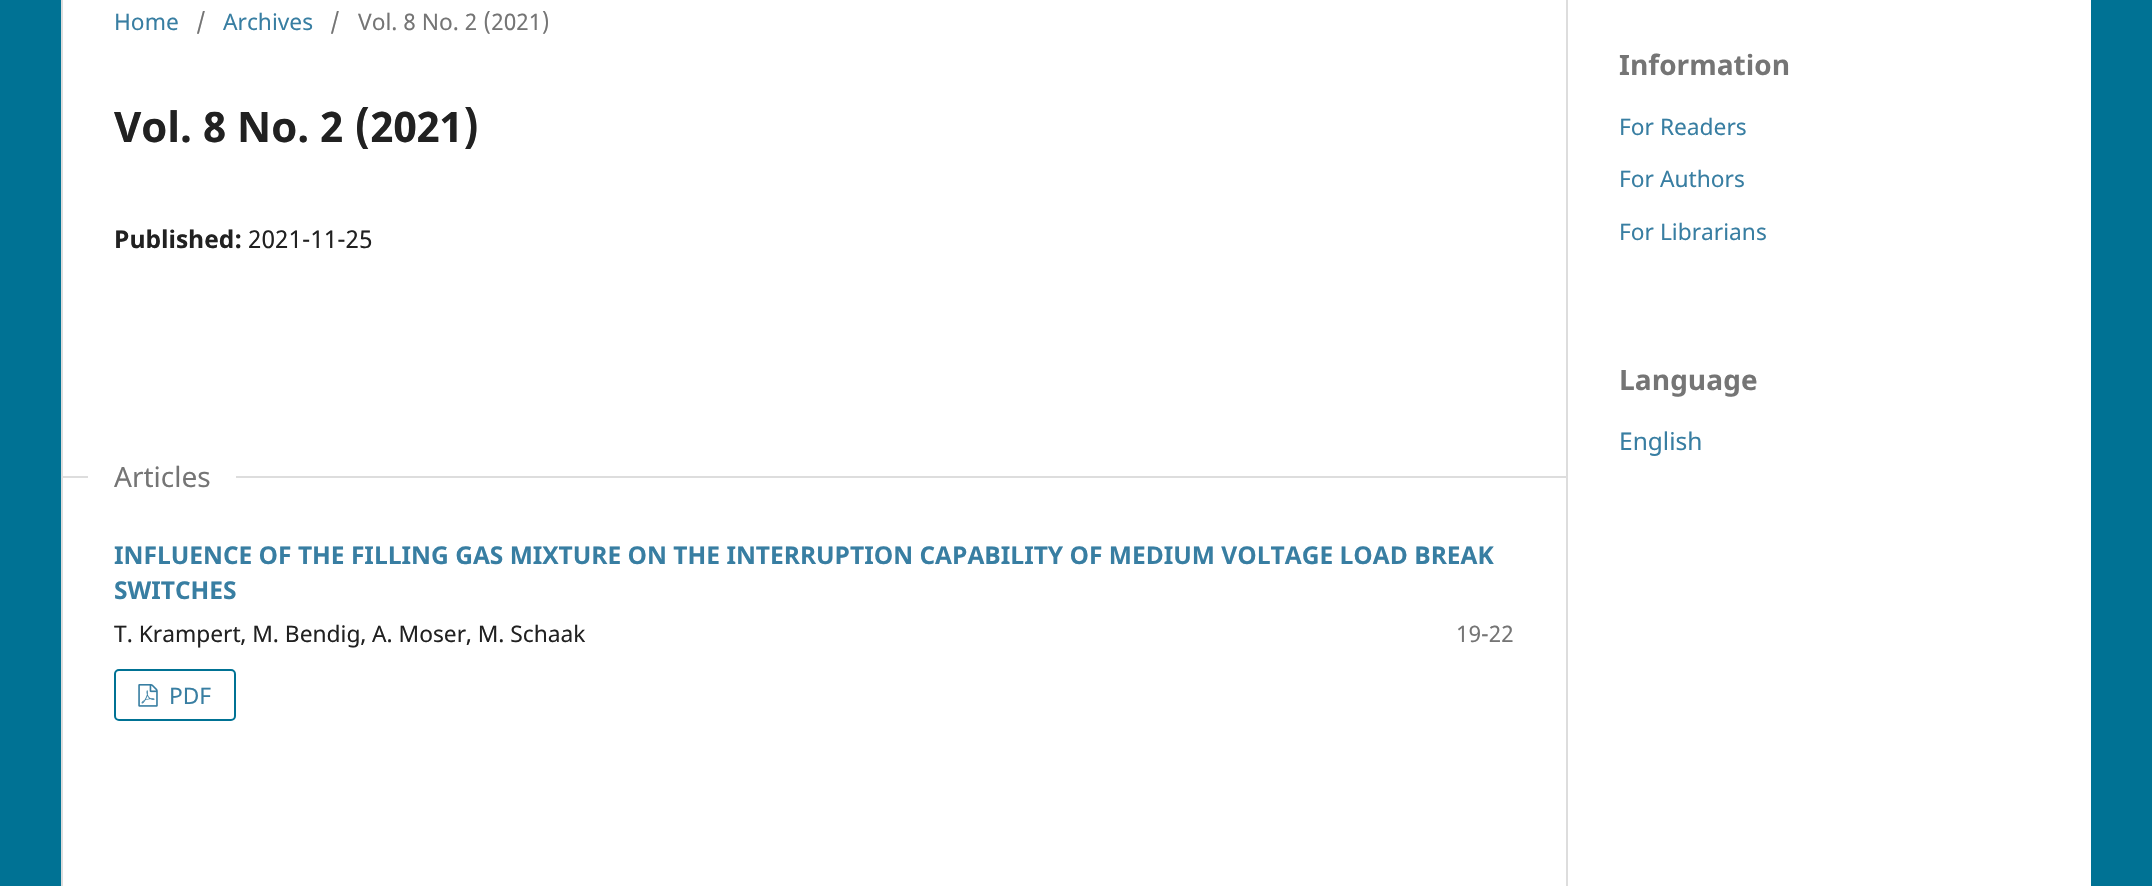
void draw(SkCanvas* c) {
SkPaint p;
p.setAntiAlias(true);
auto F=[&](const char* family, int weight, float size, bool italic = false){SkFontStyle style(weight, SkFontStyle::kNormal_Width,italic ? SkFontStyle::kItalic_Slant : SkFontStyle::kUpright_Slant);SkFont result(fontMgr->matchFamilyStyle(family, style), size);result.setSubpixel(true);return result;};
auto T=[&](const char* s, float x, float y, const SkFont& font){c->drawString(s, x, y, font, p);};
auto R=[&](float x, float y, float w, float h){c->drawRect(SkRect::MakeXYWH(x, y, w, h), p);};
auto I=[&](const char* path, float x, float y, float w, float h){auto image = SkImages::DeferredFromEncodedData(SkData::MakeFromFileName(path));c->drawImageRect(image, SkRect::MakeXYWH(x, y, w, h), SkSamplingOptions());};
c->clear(0xff007294);
p.setColor(0xffffffff);
R(63,0,2028,886);
p.setColor(0xffdddddd);
R(61,0,2,886);
auto f1 = F("Noto Sans",400,22.75);
p.setColor(0xff387ea2);
T("Home",114,30,f1);
p.setColor(0xff757575);
T("/",196,30,f1);
p.setColor(0xff387ea2);
T("Archives",223,30,f1);
p.setColor(0xff757575);
T("/",330,30,f1);
T("Vol. 8 No. 2 (2021)",358,30,f1);
auto f2 = F("Noto Sans",700,42);
p.setColor(0xff212121);
T("Vol. 8 No. 2 (2021)",114,142,f2);
auto f3 = F("Noto Sans",700,24.5);
T("Published:",114,248,f3);
auto f4 = F("Noto Sans",400,24.5);
T("2021-11-25",248,248,f4);
p.setColor(0xffdddddd);
R(61,476,1505,2);
p.setColor(0xffffffff);
R(88,476,148,2);
auto f5 = F("Noto Sans",400,28);
p.setColor(0xff757575);
T("Articles",114,487,f5);
p.setColor(0xff387ea2);
T("INFLUENCE OF THE FILLING GAS MIXTURE ON THE INTERRUPTION CAPABILITY OF MEDIUM VOLTAGE LOAD BREAK",114,564,f3);
T("SWITCHES",114,599,f3);
p.setColor(0xff212121);
T("T. Krampert, M. Bendig, A. Moser, M. Schaak",114,642,f1);
p.setColor(0xff757575);
T("19-22",1456,642,f1);
p.setStroke(true);
p.setStrokeWidth(2);
p.setColor(0xff007294);
c->drawRoundRect(SkRect::MakeXYWH(115,670,120,50),4,4,p);
I("1.png",138,684,20,23);
p.setStroke(false);
p.setColor(0xff387ea2);
T("PDF",169,704,f1);
p.setColor(0xffdddddd);
R(1566,0,2,886);
auto f6 = F("Noto Sans",700,28);
p.setColor(0xff757575);
T("Information",1619,75,f6);
p.setColor(0xff387ea2);
T("For Readers",1619,135,f1);
T("For Authors",1619,187,f1);
T("For Librarians",1619,240,f1);
p.setColor(0xff757575);
T("Language",1619,390,f6);
p.setColor(0xff387ea2);
T("English",1619,450,f4);
}
